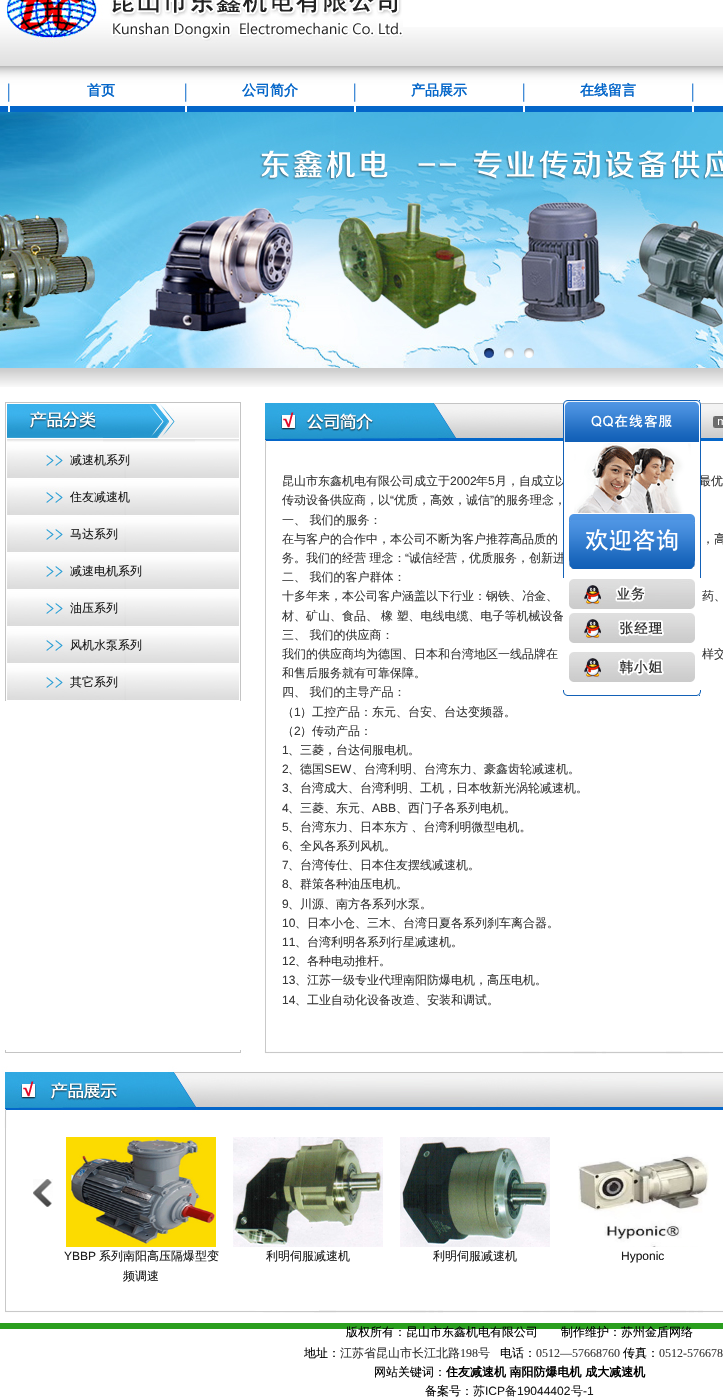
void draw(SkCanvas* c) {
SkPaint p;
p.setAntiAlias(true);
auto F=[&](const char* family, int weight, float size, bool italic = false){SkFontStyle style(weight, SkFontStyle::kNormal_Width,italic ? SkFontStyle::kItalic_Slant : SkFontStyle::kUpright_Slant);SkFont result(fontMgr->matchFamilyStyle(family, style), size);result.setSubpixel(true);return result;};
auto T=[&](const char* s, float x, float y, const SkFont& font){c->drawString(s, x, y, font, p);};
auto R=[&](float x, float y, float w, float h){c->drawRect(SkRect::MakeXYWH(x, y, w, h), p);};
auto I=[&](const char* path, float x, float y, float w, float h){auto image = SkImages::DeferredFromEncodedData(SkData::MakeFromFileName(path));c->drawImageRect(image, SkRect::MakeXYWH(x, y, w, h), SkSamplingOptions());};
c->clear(0xffffffff);
I("1.png",0,27,723,85);
I("2.png",0,0,403,43);
I("3.png",8,83,2,29);
I("3.png",185,83,2,29);
auto f1 = F("WenQuanYi Zen Hei",700,14);
p.setColor(0xff0466c9);
T("首页",87,95,f1);
I("3.png",354,83,2,29);
T("公司简介",242,95,f1);
I("3.png",523,83,2,29);
T("产品展示",411,95,f1);
I("3.png",692,83,2,29);
T("在线留言",580,95,f1);
I("4.png",0,112,723,256);
I("5.png",484,348,10,10);
I("6.png",504,348,10,10);
I("7.png",524,348,10,10);
I("8.png",0,368,723,19);
I("18.png",265,392,458,56);
I("9.png",563,400,138,42);
auto f2 = F("WenQuanYi Zen Hei",500,12);
p.setColor(0xff383838);
T("月，自成立以",495,485,f2);
T("最优",699,485,f2);
I("10.png",563,442,138,71);
auto f3 = F("Liberation Sans",400,12);
T("“",405,562,f3);
T("诚信经营，优质服务，创新进",409,562,f2);
I("11.png",563,513,138,65);
I("12.png",569,579,126,31);
T("橡 塑、电线电缆、电子等机械设备",381,620,f2);
p.setColor(0xffffffff);
R(563,616,1,1);
I("13.png",569,613,126,30);
I("14.png",569,652,126,30);
I("15.png",563,690,138,6);
I("16.png",5,402,236,40);
I("17.png",5,442,236,37);
p.setColor(0xff1c1c1c);
T("减速机系列",70,464,f2);
I("17.png",5,479,236,37);
T("住友减速机",70,501,f2);
I("17.png",5,516,236,37);
T("马达系列",70,538,f2);
I("17.png",5,553,236,37);
T("减速电机系列",70,575,f2);
I("17.png",5,590,236,37);
T("油压系列",70,612,f2);
I("17.png",5,627,236,37);
T("风机水泵系列",70,649,f2);
I("17.png",5,664,236,37);
T("其它系列",70,686,f2);
p.setColor(0xffc9c9c9);
R(265,448,1,602);
p.setColor(0xff383838);
T("昆山市东鑫机电有限公司成立于",282,485,f2);
T("2002",450,485,f3);
T("年",476,485,f2);
T("5",488,485,f3);
T("传动设备供应商，以",282,504,f2);
T("“",390,504,f3);
T("优质，高效，诚信",394,504,f2);
T("”",490,504,f3);
T("的服务理念，",494,504,f2);
T("一、 我们的服务：",282,524,f2);
T("在与客户的合作中，本公司不断为客户推荐高品质的",282,543,f2);
T("，高",702,543,f2);
T("务。我们的经营 理念：",282,562,f2);
T("二、 我们的客户群体：",282,581,f2);
T("十多年来，本公司客户涵盖以下行业：钢铁、冶金、",282,600,f2);
T("药、",702,600,f2);
T("材、矿山、食品、",282,620,f2);
T("三、 我们的供应商：",282,639,f2);
T("我们的供应商均为德国、日本和台湾地区一线品牌在",282,658,f2);
T("样交",702,658,f2);
T("和售后服务就有可靠保障。",282,677,f2);
T("四、 我们的主导产品：",282,696,f2);
T("（",282,716,f2);
T("1",294,716,f3);
T("）工控产品：东元、台安、台达变频器。",300,716,f2);
T("（",282,735,f2);
T("2",294,735,f3);
T("）传动产品：",300,735,f2);
T("1",282,754,f3);
T("、三菱，台达伺服电机。",288,754,f2);
T("2",282,773,f3);
T("、德国",288,773,f2);
T("SEW",324,773,f3);
T("、台湾利明、台湾东力、豪鑫齿轮减速机。",352,773,f2);
T("3",282,792,f3);
T("、台湾成大、台湾利明、工机，日本牧新光涡轮减速机。",288,792,f2);
T("4",282,812,f3);
T("、三菱、东元、",288,812,f2);
T("ABB",372,812,f3);
T("、西门子各系列电机。",396,812,f2);
T("5",282,831,f3);
T("、台湾东力、日本东方 、台湾利明微型电机。",288,831,f2);
T("6",282,850,f3);
T("、全风各系列风机。",288,850,f2);
T("7",282,869,f3);
T("、台湾传仕、日本住友摆线减速机。",288,869,f2);
T("8",282,888,f3);
T("、群策各种油压电机。",288,888,f2);
T("9",282,908,f3);
T("、川源、南方各系列水泵。",288,908,f2);
T("10",282,927,f3);
T("、日本小仓、三木、台湾日夏各系列刹车离合器。",295,927,f2);
T("11",282,946,f3);
T("、台湾利明各系列行星减速机。",295,946,f2);
T("12",282,965,f3);
T("、各种电动推杆。",295,965,f2);
T("13",282,984,f3);
T("、江苏一级专业代理南阳防爆电机，高压电机。",295,984,f2);
T("14",282,1004,f3);
T("、工业自动化设备改造、安装和调试。",295,1004,f2);
I("19.png",1,1050,722,78);
p.setColor(0xffc9c9c9);
R(5,1128,1,182);
I("20.png",33,1179,20,28);
I("21.png",66,1137,150,110);
p.setColor(0xff1c1c1c);
T("YBBP",64,1260,f3);
T("系列南阳高压隔爆型变",99,1260,f2);
T("频调速",123,1280,f2);
I("22.png",233,1137,150,110);
T("利明伺服减速机",266,1260,f2);
I("23.png",400,1137,150,110);
T("利明伺服减速机",433,1260,f2);
I("24.png",578,1154,131,93);
T("Hyponic",621,1260,f3);
I("25.png",5,1310,718,13);
I("26.png",0,1323,723,76);
p.setColor(0xff000000);
T("版权所有：昆山市东鑫机电有限公司",346,1336,f2);
T("制作维护：苏州金盾网络",561,1336,f2);
T("地址：",304,1357,f2);
p.setColor(0xff383838);
T("江苏省昆山市长江北路",340,1357,f2);
auto f4 = F("Liberation Serif",400,12);
T("198",460,1357,f4);
T("号",478,1357,f2);
p.setColor(0xff000000);
T("电话：",500,1357,f2);
p.setColor(0xff383838);
T("0512—57668760",536,1357,f4);
p.setColor(0xff000000);
T("传真：",623,1357,f2);
p.setColor(0xff383838);
T("0512-576678",659,1357,f4);
p.setColor(0xff000000);
T("网站关键词：",374,1376,f2);
auto f5 = F("WenQuanYi Zen Hei",700,12);
T("住友减速机 南阳防爆电机 成大减速机",446,1376,f5);
T("备案号：",425,1395,f2);
p.setColor(0xff1c1c1c);
T("苏",473,1395,f2);
T("ICP",485,1395,f3);
T("备",505,1395,f2);
T("19044402",517,1395,f3);
T("号",571,1395,f2);
T("-1",583,1395,f3);
}
